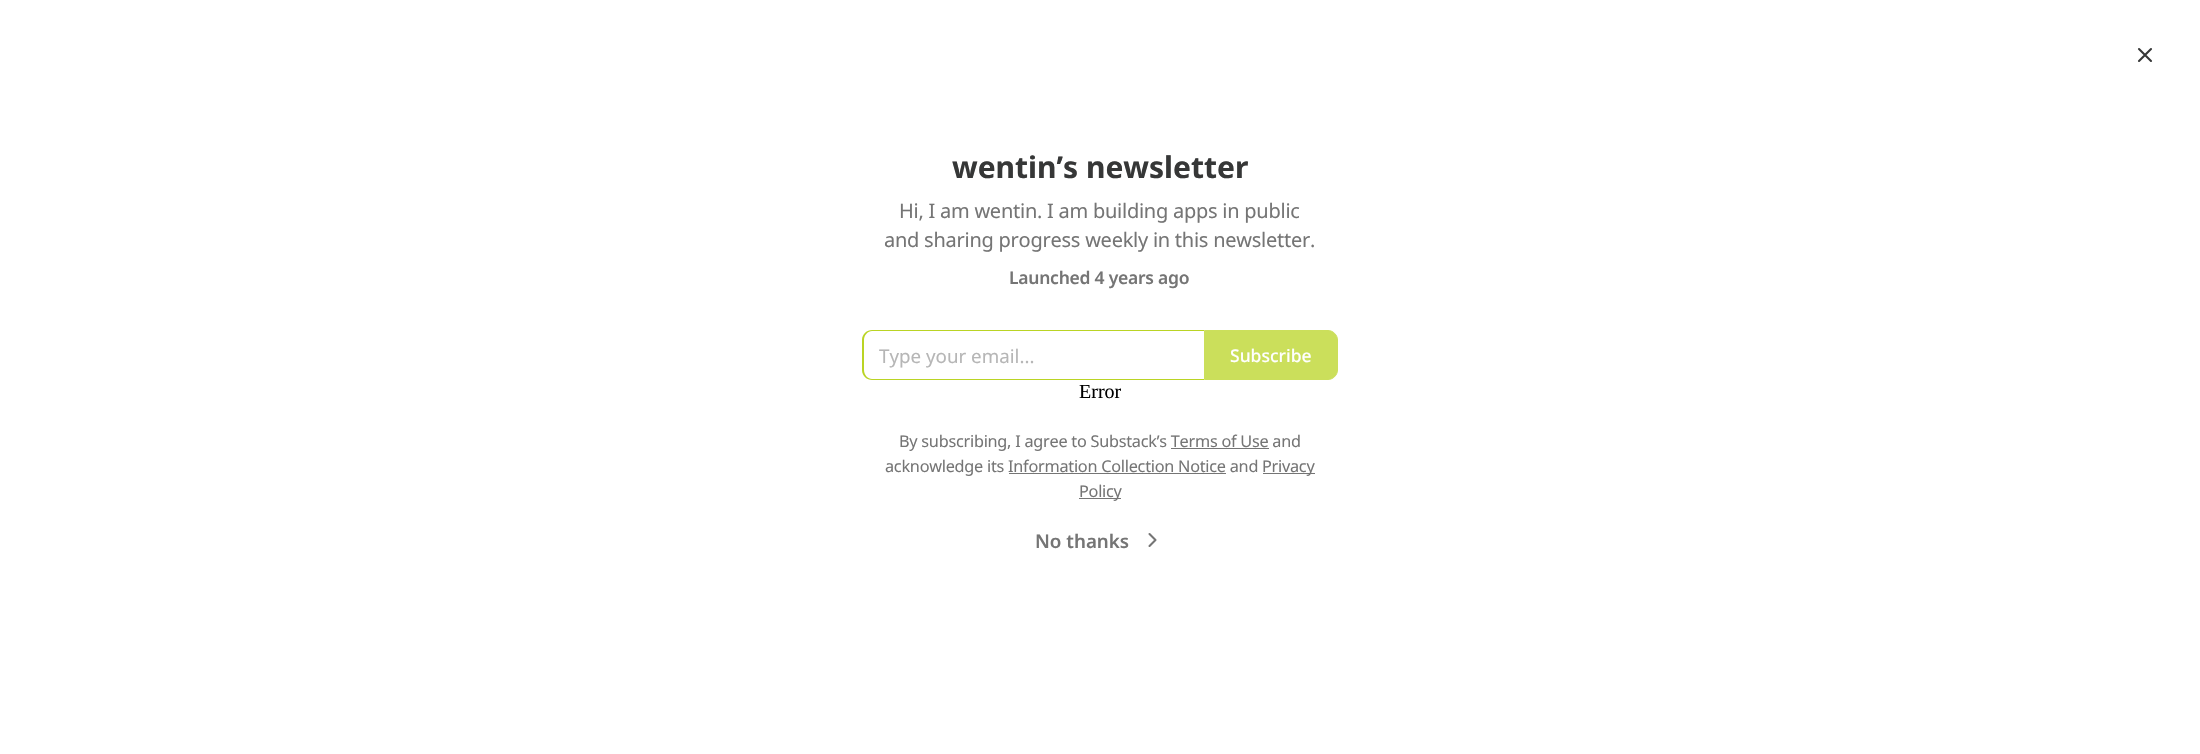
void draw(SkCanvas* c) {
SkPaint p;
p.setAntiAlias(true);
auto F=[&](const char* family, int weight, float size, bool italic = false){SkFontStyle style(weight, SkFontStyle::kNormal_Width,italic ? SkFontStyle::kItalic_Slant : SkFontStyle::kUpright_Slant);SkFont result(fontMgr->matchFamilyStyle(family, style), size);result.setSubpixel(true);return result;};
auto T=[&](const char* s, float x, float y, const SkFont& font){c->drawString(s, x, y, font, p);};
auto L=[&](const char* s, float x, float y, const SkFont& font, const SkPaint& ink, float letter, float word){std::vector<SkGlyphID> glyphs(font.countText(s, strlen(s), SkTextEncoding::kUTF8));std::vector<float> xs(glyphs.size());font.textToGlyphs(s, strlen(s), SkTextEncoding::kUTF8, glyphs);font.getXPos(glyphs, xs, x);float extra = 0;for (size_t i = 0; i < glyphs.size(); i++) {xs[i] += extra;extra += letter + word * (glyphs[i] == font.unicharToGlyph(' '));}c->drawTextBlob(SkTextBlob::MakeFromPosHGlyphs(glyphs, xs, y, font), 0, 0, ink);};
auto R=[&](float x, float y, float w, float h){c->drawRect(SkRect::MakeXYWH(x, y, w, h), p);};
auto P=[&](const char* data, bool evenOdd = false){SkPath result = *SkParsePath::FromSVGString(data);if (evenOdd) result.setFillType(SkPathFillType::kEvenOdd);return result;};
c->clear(0xffffffff);
p.setStroke(true);
p.setStrokeWidth(2.1);
p.setStrokeCap(SkPaint::kRound_Cap);
p.setStrokeJoin(SkPaint::kRound_Join);
p.setColor(0xff363737);
c->drawPath(P("M2151 49l-12 12m0-12l12 12"),p);
auto f1 = F("Noto Sans",700,30);
p.setStroke(false);
T("wentin’s newsletter",952,178,f1);
auto f2 = F("Noto Sans",400,20);
p.setColor(0xff757575);
L("Hi, I am wentin. I am building apps in public",899,218,f2,p,-.25,0);
L("and sharing progress weekly in this newsletter.",884,247,f2,p,-.25,0);
auto f3 = F("Noto Sans",600,17.5);
L("Launched 4 years ago",1009,284,f3,p,-.25,0);
p.setColor(0xffbad424);
c->drawPath(P("M872 330h332v50h-332c-5 0-10-4-10-10v-30c0-6 5-10 10-10zm0 1h332v48h-332c-4 0-8-4-8-9v-30c0-5 4-9 8-9z",true),p);
auto f4 = F("Noto Sans",400,18.75);
p.setColor(0xffb6b6b6);
T("Type your email...",879,363,f4);
p.setColor(0xffcbdf5b);
c->drawPath(P("M1204.5 330.5h123.5c5 0 9.5 4.5 9.5 9.5v30c0 5-4.5 9.5-9.5 9.5h-123.5z"),p);
p.setStroke(true);
p.setStrokeWidth(1);
p.setStrokeCap(SkPaint::kButt_Cap);
p.setStrokeJoin(SkPaint::kMiter_Join);
c->drawPath(P("M1204.5 330.5h123.5c5 0 9.5 4.5 9.5 9.5v30c0 5-4.5 9.5-9.5 9.5h-123.5z"),p);
auto f5 = F("Noto Sans",500,17.5);
p.setStroke(false);
p.setColor(0xffffffff);
T("Subscribe",1230,362,f5);
auto f6 = F("Liberation Serif",400,20);
p.setColor(0xff000000);
T("Error",1079,398,f6);
auto f7 = F("Noto Sans",400,16.25);
p.setColor(0xff757575);
L("By subscribing, I agree to Substack’s Terms of Use and",899,447,f7,p,-.25,0);
R(1171,448,98,1);
L("acknowledge its Information Collection Notice and",885,472,f7,p,-.25,0);
R(1263,473,52,1);
L("Privacy",1262,472,f7,p,-.25,0);
R(1009,473,217,1);
R(1079,498,42,1);
L("Policy",1079,497,f7,p,-.25,0);
auto f8 = F("Noto Sans",600,18.75);
T("No thanks",1035,548,f8);
p.setStroke(true);
p.setStrokeWidth(2.1);
p.setStrokeCap(SkPaint::kRound_Cap);
p.setStrokeJoin(SkPaint::kRound_Join);
c->drawPath(P("M1149.5 546l6-6l-6-6"),p);
}
